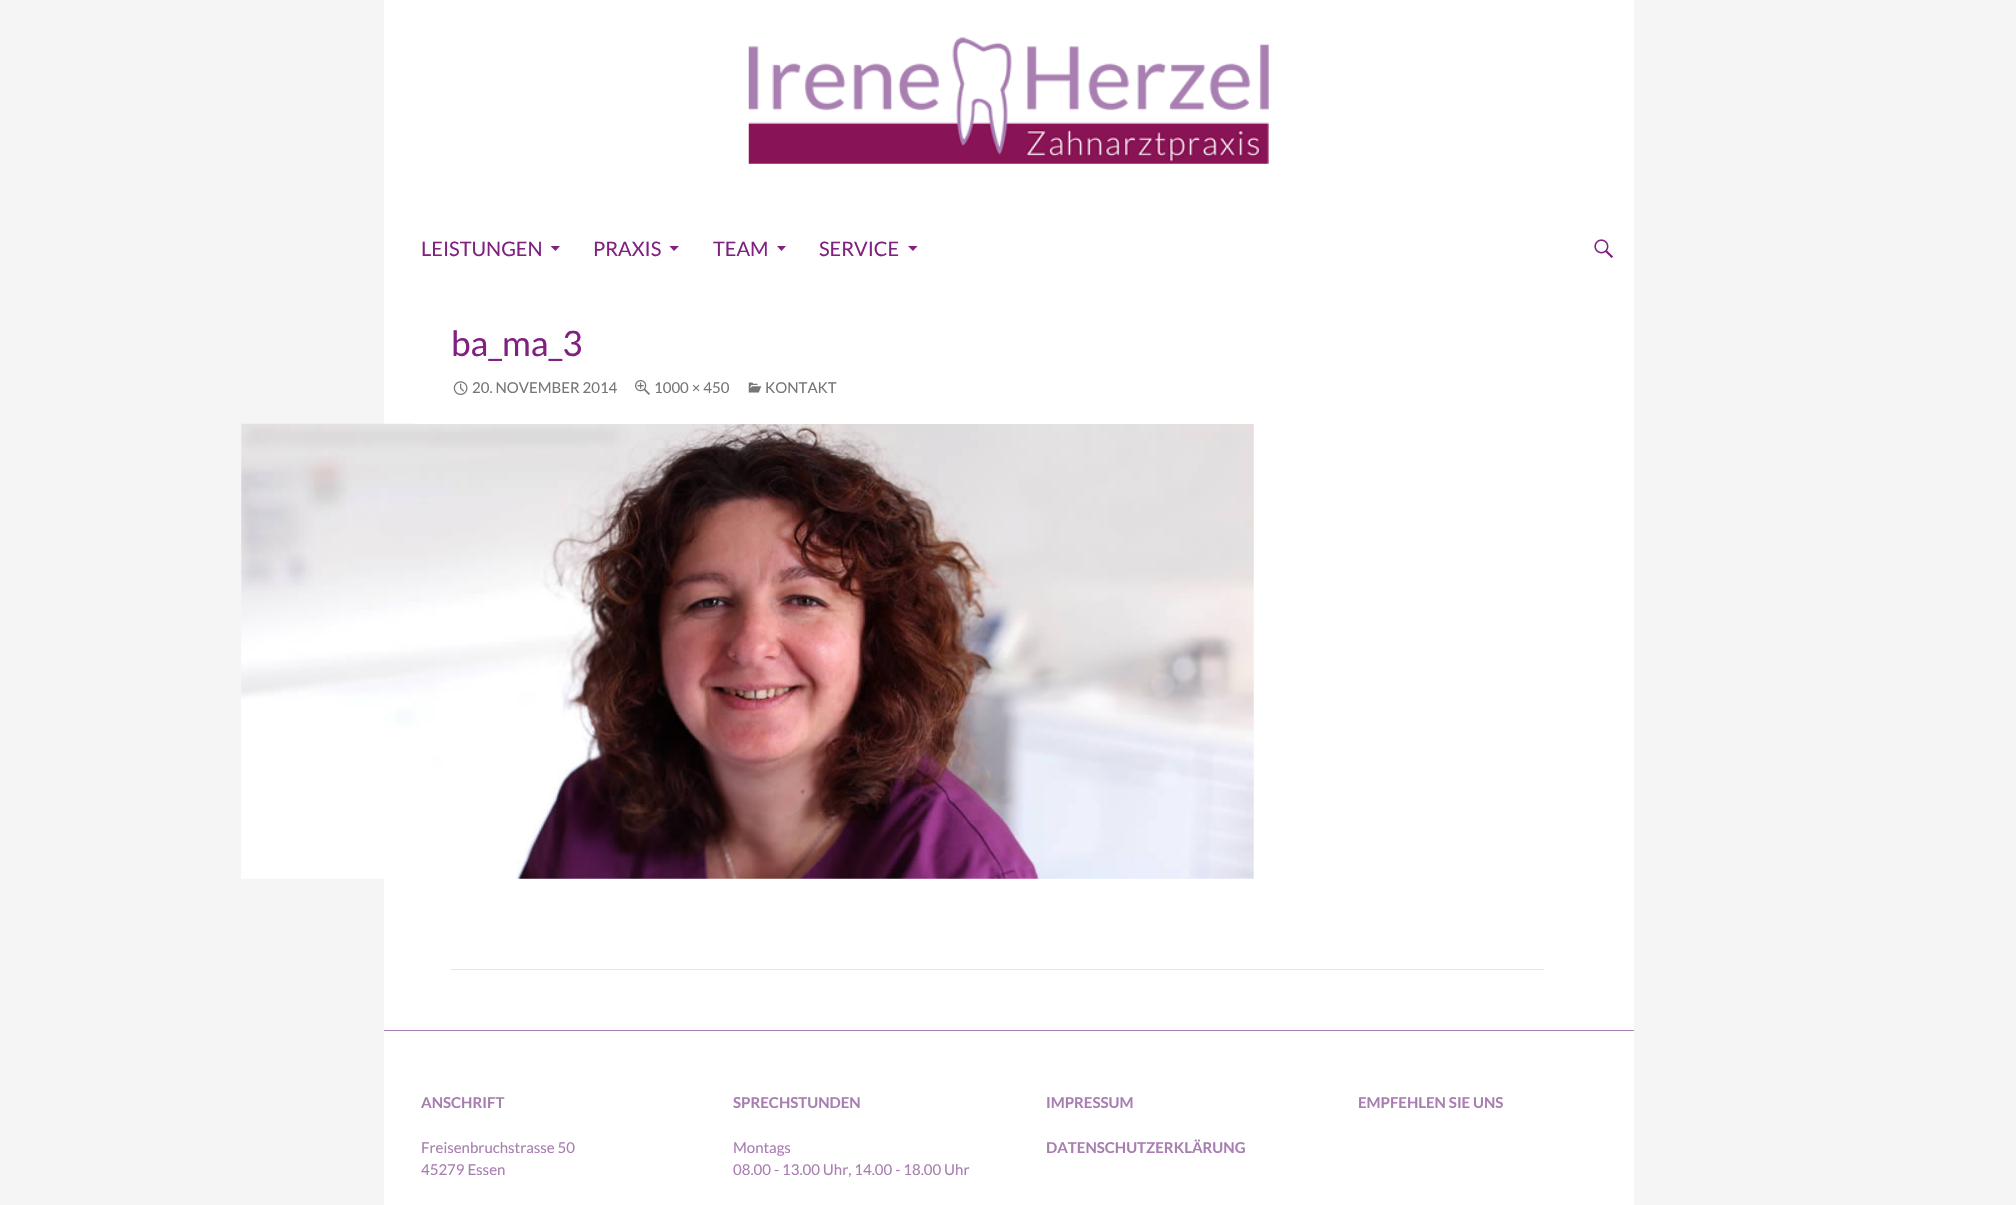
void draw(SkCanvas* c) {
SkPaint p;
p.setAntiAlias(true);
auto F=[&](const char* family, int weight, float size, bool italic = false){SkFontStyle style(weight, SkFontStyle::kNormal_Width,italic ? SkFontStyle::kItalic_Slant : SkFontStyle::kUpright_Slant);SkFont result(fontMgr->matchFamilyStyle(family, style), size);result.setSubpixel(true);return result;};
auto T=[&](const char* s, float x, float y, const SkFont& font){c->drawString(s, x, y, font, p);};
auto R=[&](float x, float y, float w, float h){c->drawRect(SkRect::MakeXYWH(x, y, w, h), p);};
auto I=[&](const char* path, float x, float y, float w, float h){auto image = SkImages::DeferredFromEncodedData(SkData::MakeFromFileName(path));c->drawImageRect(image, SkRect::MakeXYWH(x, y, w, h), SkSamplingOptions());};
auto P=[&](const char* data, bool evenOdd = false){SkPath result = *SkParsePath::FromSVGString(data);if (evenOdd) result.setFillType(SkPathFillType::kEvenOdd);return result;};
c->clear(0xfff5f5f5);
p.setColor(0xffffffff);
R(384,0,1250,1205);
I("1.png",748,37,521,127);
auto f1 = F("Lato",400,20);
p.setColor(0xff802080);
T("LEISTUNGEN",421,256,f1);
c->drawPath(P("M550.5 246l5 5l4.5-5z"),p);
T("PRAXIS",593,256,f1);
c->drawPath(P("M669.5 246l4.5 5l5-5z"),p);
T("TEAM",713,256,f1);
c->drawPath(P("M777 246l4.5 5l4.5-5z"),p);
T("SERVICE",819,256,f1);
c->drawPath(P("M908 246l5 5l4.5-5z"),p);
I("2.png",1594,239,19,19);
I("6.png",241,423,1013,456);
p.setColor(0xffffffff);
R(414,423,840,1);
auto f2 = F("Lato",400,35);
p.setColor(0xff802080);
T("ba_ma_3",451,356,f2);
I("3.png",453,381,15,14);
auto f3 = F("Lato",400,15);
p.setColor(0xff767676);
T("20. NOVEMBER 2014",472,393,f3);
I("4.png",635,380,15,15);
T("1000 × 450",654,393,f3);
I("5.png",748,382,14,11);
T("KONTAKT",765,393,f3);
p.setColor(0xffe6e6e6);
R(451,969,1093,1);
p.setColor(0xffa87eb1);
R(384,1030,1250,1);
auto f4 = F("Lato",700,15);
T("ANSCHRIFT",421,1108,f4);
T("Freisenbruchstrasse 50",421,1153,f3);
T("45279 Essen",421,1175,f3);
T("SPRECHSTUNDEN",733,1108,f4);
T("Montags",733,1153,f3);
T("08.00 - 13.00 Uhr, 14.00 - 18.00 Uhr",733,1175,f3);
T("IMPRESSUM",1046,1108,f4);
T("DATENSCHUTZERKLÄRUNG",1046,1153,f4);
T("EMPFEHLEN SIE UNS",1358,1108,f4);
}
